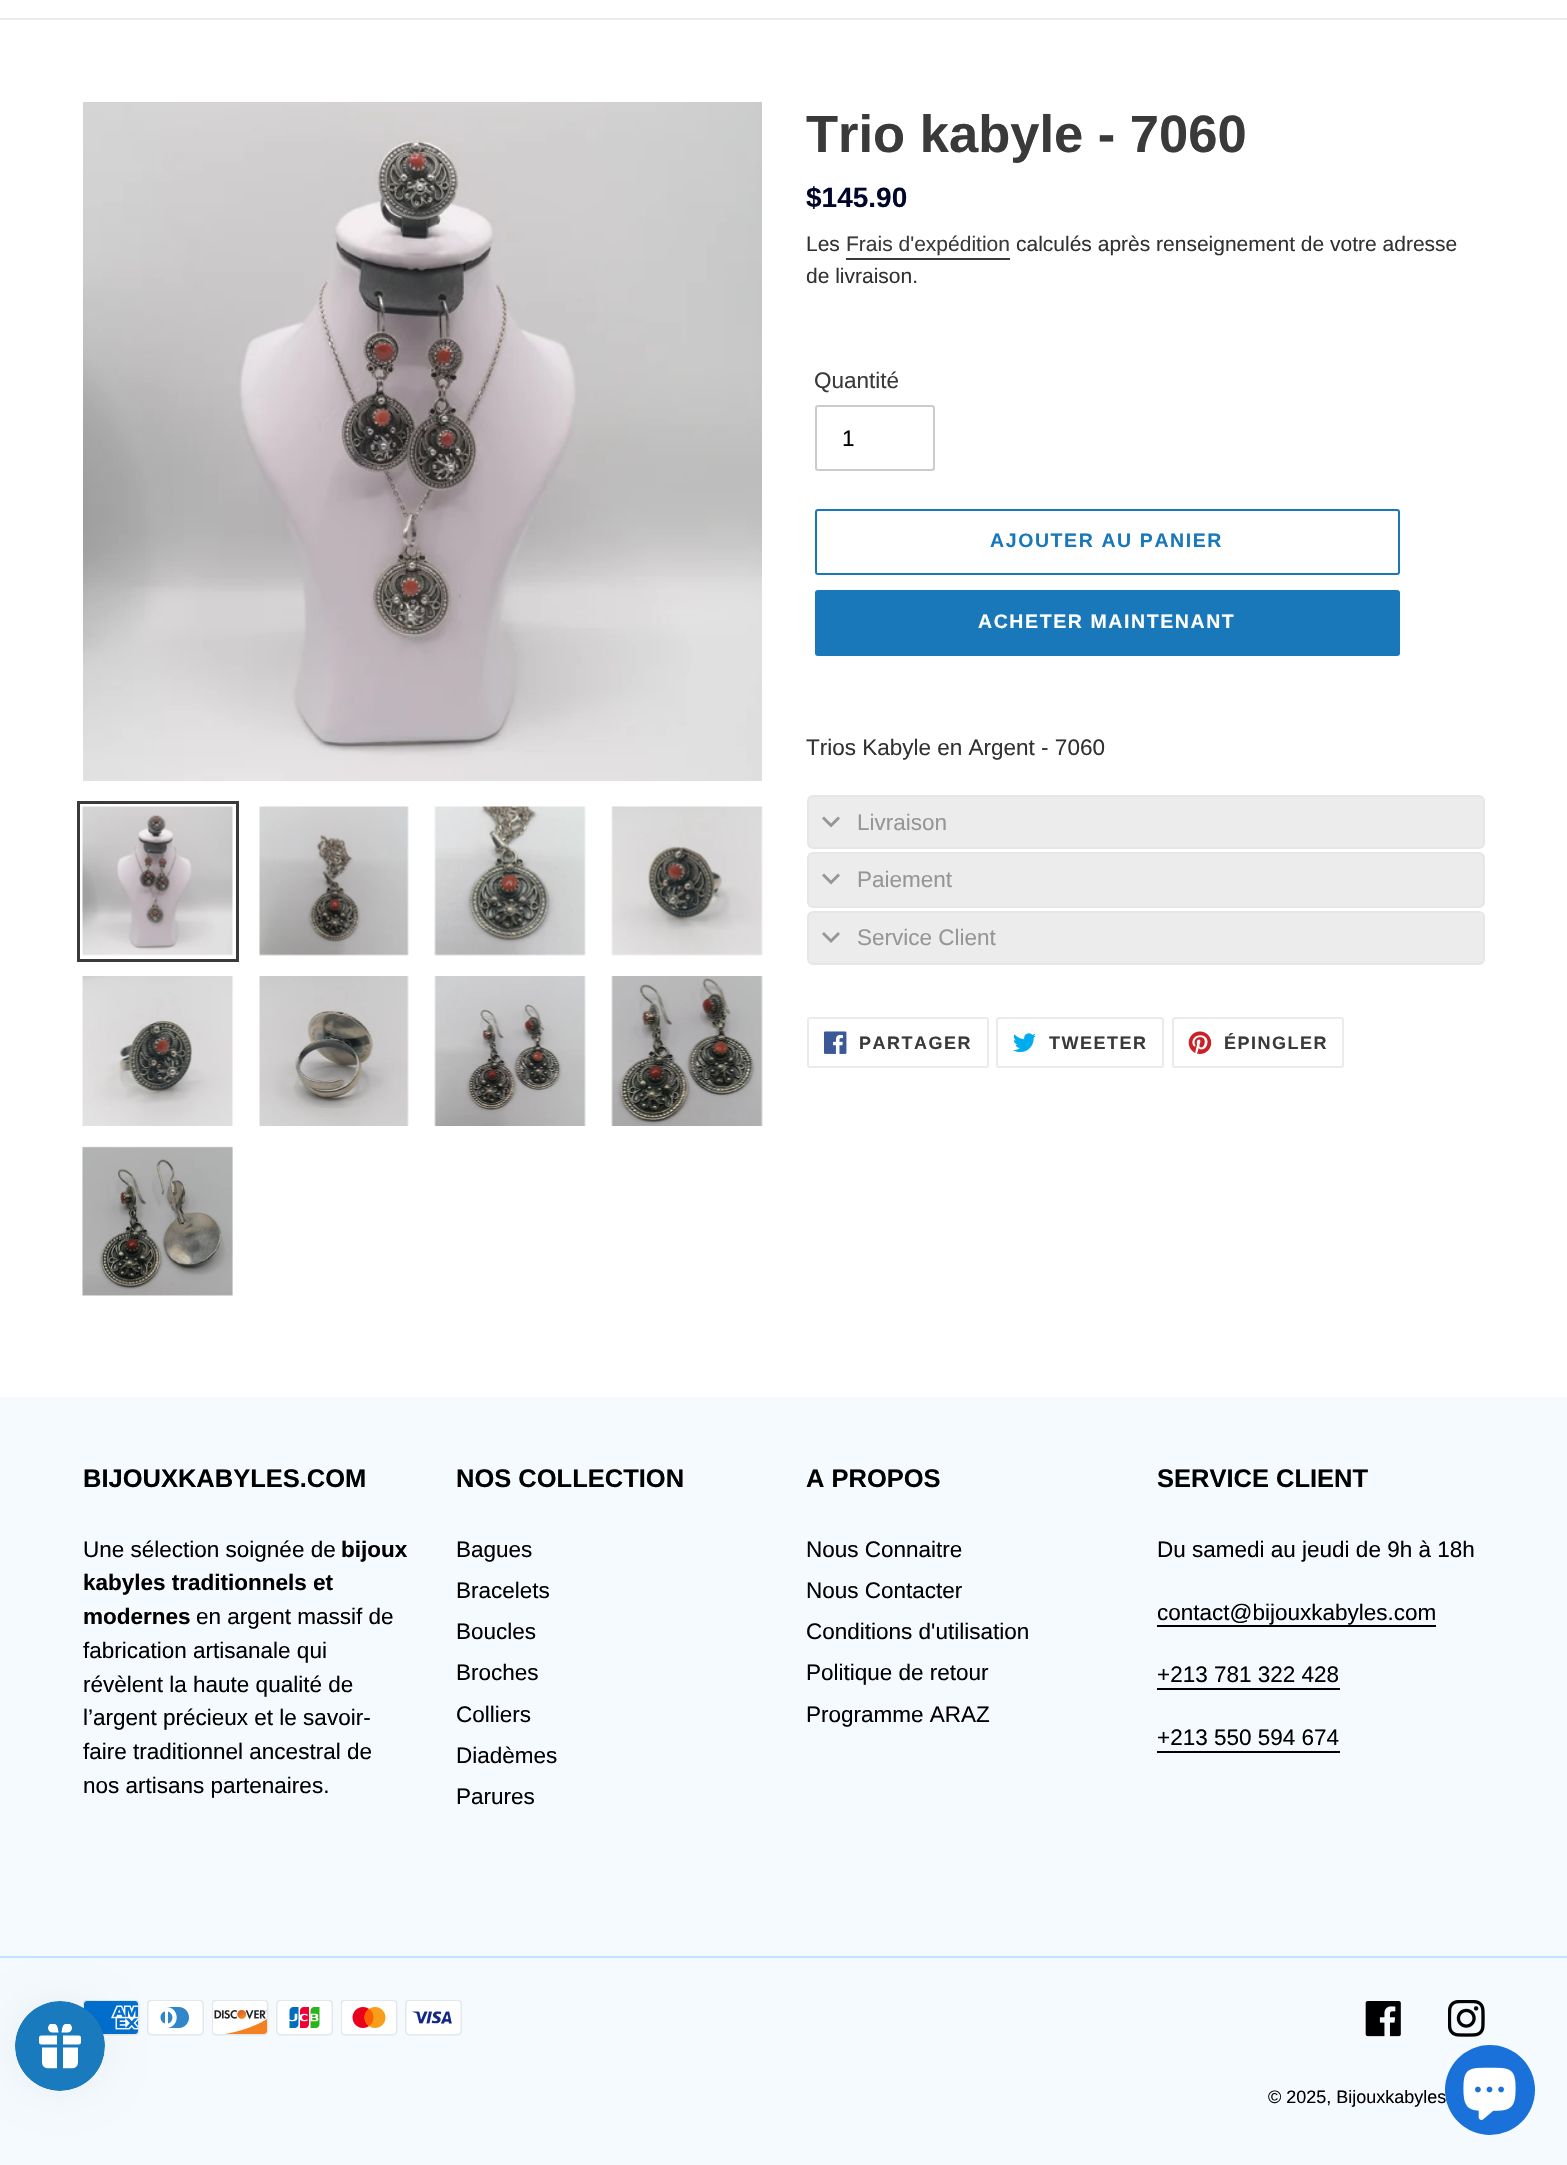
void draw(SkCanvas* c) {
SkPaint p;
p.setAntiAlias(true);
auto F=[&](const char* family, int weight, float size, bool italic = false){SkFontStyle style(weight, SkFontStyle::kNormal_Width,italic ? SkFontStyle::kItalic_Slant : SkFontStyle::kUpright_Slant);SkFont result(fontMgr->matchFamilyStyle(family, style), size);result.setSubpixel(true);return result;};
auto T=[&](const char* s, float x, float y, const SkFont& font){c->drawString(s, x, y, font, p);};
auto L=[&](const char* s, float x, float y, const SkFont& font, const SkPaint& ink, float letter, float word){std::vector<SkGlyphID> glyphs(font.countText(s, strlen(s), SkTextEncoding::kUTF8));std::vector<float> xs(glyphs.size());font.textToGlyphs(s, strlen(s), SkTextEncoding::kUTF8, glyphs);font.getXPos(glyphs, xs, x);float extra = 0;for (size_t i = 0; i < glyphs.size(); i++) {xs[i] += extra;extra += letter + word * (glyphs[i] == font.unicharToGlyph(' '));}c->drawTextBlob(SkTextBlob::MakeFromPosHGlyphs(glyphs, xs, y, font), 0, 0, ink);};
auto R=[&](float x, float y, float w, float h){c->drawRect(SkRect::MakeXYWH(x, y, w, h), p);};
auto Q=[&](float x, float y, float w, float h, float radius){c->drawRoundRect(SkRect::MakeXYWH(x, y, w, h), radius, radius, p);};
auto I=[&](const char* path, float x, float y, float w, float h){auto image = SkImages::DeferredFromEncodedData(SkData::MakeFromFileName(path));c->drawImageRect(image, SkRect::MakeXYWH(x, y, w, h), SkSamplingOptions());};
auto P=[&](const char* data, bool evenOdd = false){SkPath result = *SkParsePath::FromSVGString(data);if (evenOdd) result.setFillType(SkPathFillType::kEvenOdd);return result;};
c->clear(0xffffffff);
p.setColor(0xffebebeb);
R(0,18,1567,2);
p.setColor(0xfff5faff);
R(0,1397,1567,768);
p.setColor(0xffc2e0ff);
R(0,1956,1567,2);
I("15.png",83,2000,57,36);
I("16.png",147,2000,57,36);
p.setColor(0x0d000000);
p.setMaskFilter(SkMaskFilter::MakeBlur(kNormal_SkBlurStyle, 19));
c->drawRoundRect(SkRect::MakeXYWH(15,2001,90,90),45,45,p);
p.setMaskFilter(nullptr);
I("1.png",15,2001,90,90);
I("2.png",83,102,679,679);
p.setStroke(true);
p.setStrokeWidth(3);
p.setColor(0xff3a3a3a);
c->drawRect(SkRect::MakeXYWH(78.5,802.5,159,158),p);
I("3.png",82,806,151,150);
I("4.png",259,806,150,150);
I("5.png",434,806,152,150);
I("6.png",611,806,152,150);
I("7.png",82,976,151,150);
I("8.png",259,976,150,150);
I("9.png",434,976,152,150);
I("10.png",611,976,152,150);
I("11.png",82,1146,151,150);
auto f1 = F("Liberation Sans",700,52.5);
p.setStroke(false);
T("Trio kabyle - 7060",806,152,f1);
auto f2 = F("Liberation Sans",700,28);
p.setColor(0xff01062b);
T("$145.90",806,207,f2);
auto f3 = F("Liberation Sans",400,21);
p.setColor(0xff333232);
T("Les",806,251,f3);
p.setColor(0xff3a3a3a);
T("Frais d'expédition",846,251,f3);
R(846,258,164,2);
p.setColor(0xff333232);
T("calculés après renseignement de votre adresse",1016,251,f3);
T("de livraison.",806,283,f3);
auto f4 = F("Liberation Sans",400,22.5);
p.setColor(0xff3a3a3a);
T("Quantité",814,388,f4);
p.setStroke(true);
p.setStrokeWidth(2);
p.setColor(0xffcccccc);
c->drawRoundRect(SkRect::MakeXYWH(816,406,118,64),2,2,p);
p.setStroke(false);
p.setColor(0xff000000);
T("1",842,446,f4);
p.setStroke(true);
p.setColor(0xff1878b9);
c->drawRoundRect(SkRect::MakeXYWH(816,510,583,64),2,2,p);
auto f5 = F("Liberation Sans",700,19.5);
p.setStroke(false);
L("AJOUTER AU PANIER",990,547,f5,p,1.6,0);
Q(815,590,585,66,3);
p.setColor(0xffffffff);
L("ACHETER MAINTENANT",978,628,f5,p,1.6,0);
p.setColor(0xff333232);
T("Trios Kabyle en Argent - 7060",806,755,f4);
p.setColor(0xffececec);
c->drawRoundRect(SkRect::MakeXYWH(808,796,676,52),5,5,p);
p.setStroke(true);
p.setColor(0xffe6e6e6);
c->drawRoundRect(SkRect::MakeXYWH(808,796,676,52),5,5,p);
p.setStroke(false);
p.setColor(0xff969696);
c->drawPath(P("M822 818.5l2-2l7 7l7-7l2 2l-9 9z"),p);
T("Livraison",857,830,f4);
p.setColor(0xffececec);
c->drawRoundRect(SkRect::MakeXYWH(808,853,676,54),5,5,p);
p.setStroke(true);
p.setColor(0xffe6e6e6);
c->drawRoundRect(SkRect::MakeXYWH(808,853,676,54),5,5,p);
p.setStroke(false);
p.setColor(0xff969696);
c->drawPath(P("M822 875.5l2-2l7 7l7-7l2 2l-9 9z"),p);
T("Paiement",857,887,f4);
p.setColor(0xffececec);
c->drawRoundRect(SkRect::MakeXYWH(808,912,676,52),5,5,p);
p.setStroke(true);
p.setColor(0xffe6e6e6);
c->drawRoundRect(SkRect::MakeXYWH(808,912,676,52),5,5,p);
p.setStroke(false);
p.setColor(0xff969696);
c->drawPath(P("M822 934l2-2l7 7l7-7l2 2l-9 9z"),p);
T("Service Client",857,945,f4);
p.setStroke(true);
p.setColor(0xffebebeb);
c->drawRoundRect(SkRect::MakeXYWH(808,1018,180,49),2,2,p);
I("12.png",824,1031,23,23);
auto f6 = F("Liberation Sans",700,18);
p.setStroke(false);
p.setColor(0xff3a3a3a);
L("PARTAGER",859,1049,f6,p,1.5,0);
p.setStroke(true);
p.setColor(0xffebebeb);
c->drawRoundRect(SkRect::MakeXYWH(997,1018,166,49),2,2,p);
I("13.png",1013,1033,23,20);
p.setStroke(false);
p.setColor(0xff3a3a3a);
L("TWEETER",1049,1049,f6,p,1.5,0);
p.setStroke(true);
p.setColor(0xffebebeb);
c->drawRoundRect(SkRect::MakeXYWH(1173,1018,170,49),2,2,p);
I("14.png",1188,1031,24,23);
p.setStroke(false);
p.setColor(0xff3a3a3a);
L("ÉPINGLER",1224,1049,f6,p,1.5,0);
auto f7 = F("Liberation Sans",700,25.5);
p.setColor(0xff000000);
T("BIJOUXKABYLES.COM",83,1487,f7);
T("Une sélection soignée de",83,1557,f4);
auto f8 = F("Liberation Sans",700,22.5);
T("bijoux",341,1557,f8);
T("kabyles traditionnels et",83,1590,f8);
T("modernes",83,1624,f8);
T("en argent massif de",196,1624,f4);
T("fabrication artisanale qui",83,1658,f4);
T("révèlent la haute qualité de",83,1692,f4);
T("l’argent précieux et le savoir-",83,1725,f4);
T("faire traditionnel ancestral de",83,1759,f4);
T("nos artisans partenaires.",83,1793,f4);
T("NOS COLLECTION",456,1487,f7);
T("Bagues",456,1557,f4);
T("Bracelets",456,1598,f4);
T("Boucles",456,1639,f4);
T("Broches",456,1680,f4);
T("Colliers",456,1722,f4);
T("Diadèmes",456,1763,f4);
T("Parures",456,1804,f4);
T("A PROPOS",806,1487,f7);
T("Nous Connaitre",806,1557,f4);
T("Nous Contacter",806,1598,f4);
T("Conditions d'utilisation",806,1639,f4);
T("Politique de retour",806,1680,f4);
T("Programme ARAZ",806,1722,f4);
T("SERVICE CLIENT",1157,1487,f7);
T("Du samedi au jeudi de 9h à 18h",1157,1557,f4);
T("contact@bijouxkabyles.com",1157,1620,f4);
R(1157,1625,279,2);
T("+213 781 322 428",1157,1682,f4);
R(1157,1688,183,2);
T("+213 550 594 674",1157,1745,f4);
R(1157,1751,183,2);
I("17.png",212,2000,57,36);
I("18.png",276,2000,57,36);
I("19.png",341,2000,57,36);
I("20.png",405,2000,57,36);
I("21.png",1365,2001,36,36);
I("22.png",1448,2000,37,37);
auto f9 = F("Liberation Sans",400,18);
T("© 2025, Bijouxkabyles",1268,2103,f9);
p.setColor(0xff1971d9);
c->drawCircle(1490,2090,45,p);
I("23.png",1463,2067,53,53);
}
